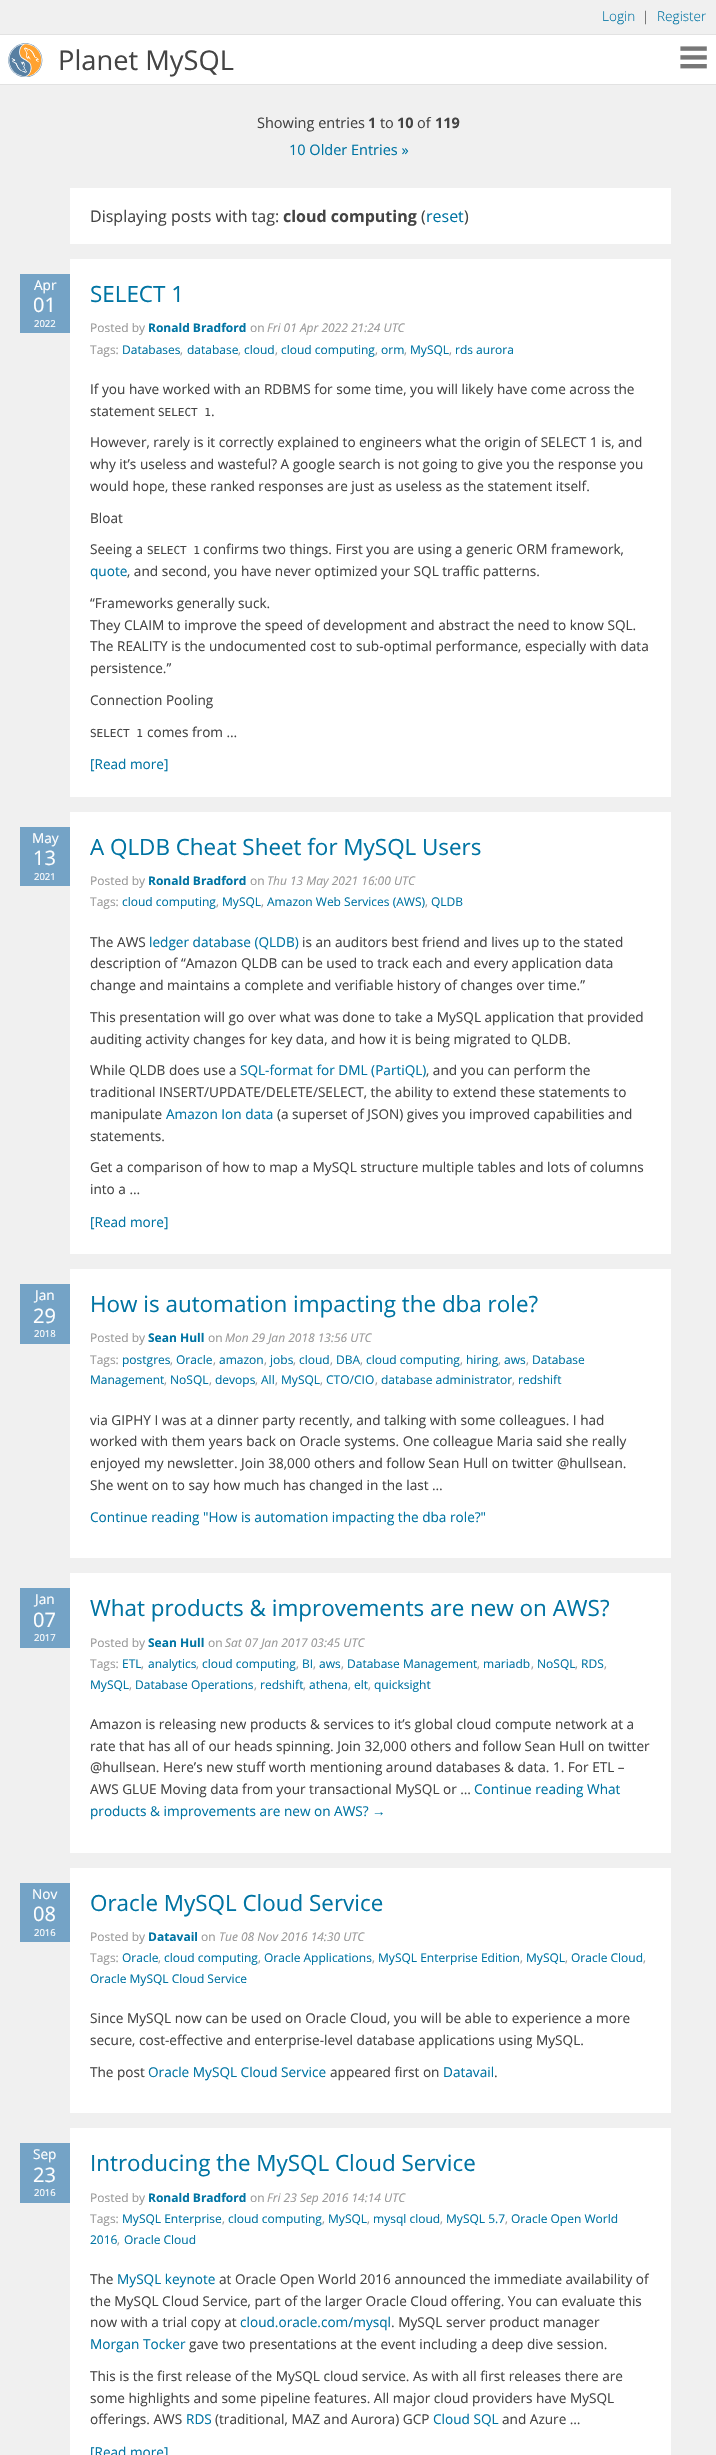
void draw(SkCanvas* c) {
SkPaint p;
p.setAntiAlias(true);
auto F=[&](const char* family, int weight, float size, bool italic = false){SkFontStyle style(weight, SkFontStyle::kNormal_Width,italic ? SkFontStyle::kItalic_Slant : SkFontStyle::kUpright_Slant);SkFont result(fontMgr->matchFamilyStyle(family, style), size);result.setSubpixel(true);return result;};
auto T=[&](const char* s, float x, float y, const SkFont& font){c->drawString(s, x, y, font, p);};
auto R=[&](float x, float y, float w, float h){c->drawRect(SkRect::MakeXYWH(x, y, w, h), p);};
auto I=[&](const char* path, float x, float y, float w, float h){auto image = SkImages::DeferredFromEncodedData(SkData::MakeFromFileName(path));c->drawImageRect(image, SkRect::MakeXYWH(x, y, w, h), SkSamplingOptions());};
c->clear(0xfff0f0f0);
p.setColor(0xffe2e2e2);
R(0,34,716,1);
auto f1 = F("Open Sans",300,13.6);
p.setColor(0xff0074a3);
T("Login",602,21,f1);
p.setColor(0xff444444);
T("|",642,21,f1);
p.setColor(0xff0074a3);
T("Register",657,21,f1);
p.setColor(0xffffffff);
R(0,35,716,49);
p.setColor(0xffe2e2e2);
R(0,84,716,1);
I("1.png",8,43,35,34);
auto f2 = F("Open Sans",400,27.25);
p.setColor(0xff444444);
T("Planet MySQL",58,70,f2);
I("2.png",680,46,27,23);
auto f3 = F("Open Sans",400,14.5);
T("Showing entries",257,128,f3);
auto f4 = F("Open Sans",700,14.5);
T("1",368,128,f4);
T("to",380,128,f3);
T("10",397,128,f4);
T("of",417,128,f3);
T("119",435,128,f4);
p.setColor(0xff0074a3);
T("10 Older Entries »",289,155,f3);
p.setColor(0xffffffff);
R(70,188,601,56);
auto f5 = F("Open Sans",400,16);
p.setColor(0xff444444);
T("Displaying posts with tag:",90,222,f5);
auto f6 = F("Open Sans",700,16);
T("cloud computing",283,222,f6);
T("(",421,222,f5);
p.setColor(0xff0074a3);
T("reset",426,222,f5);
p.setColor(0xff444444);
T(")",464,222,f5);
p.setColor(0xffffffff);
R(70,259,601,538);
p.setColor(0xff74a3c6);
R(20,274,50,59);
auto f7 = F("Open Sans",400,13.6);
p.setColor(0xffffffff);
T("Apr",34,290,f7);
auto f8 = F("Open Sans",400,20);
T("01",33,312,f8);
auto f9 = F("Open Sans",400,9.5);
T("2022",34,327,f9);
auto f10 = F("Open Sans",400,22.4);
p.setColor(0xff0074a3);
T("SELECT 1",90,302,f10);
auto f11 = F("Open Sans",400,12);
p.setColor(0xff999999);
T("Posted by",90,332,f11);
auto f12 = F("Open Sans",700,12);
p.setColor(0xff0074a3);
T("Ronald Bradford",148,332,f12);
p.setColor(0xff999999);
T("on",250,332,f11);
auto f13 = F("Open Sans",400,12,true);
T("Fri 01 Apr 2022 21:24 UTC",267,332,f13);
T("Tags:",90,354,f11);
p.setColor(0xff0074a3);
T("Databases",122,354,f11);
p.setColor(0xff999999);
T(",",180,354,f11);
p.setColor(0xff0074a3);
T("database",187,354,f11);
p.setColor(0xff999999);
T(",",238,354,f11);
p.setColor(0xff0074a3);
T("cloud",244,354,f11);
p.setColor(0xff999999);
T(",",275,354,f11);
p.setColor(0xff0074a3);
T("cloud computing",281,354,f11);
p.setColor(0xff999999);
T(",",375,354,f11);
p.setColor(0xff0074a3);
T("orm",381,354,f11);
p.setColor(0xff999999);
T(",",404,354,f11);
p.setColor(0xff0074a3);
T("MySQL",410,354,f11);
p.setColor(0xff999999);
T(",",449,354,f11);
p.setColor(0xff0074a3);
T("rds aurora",455,354,f11);
p.setColor(0xff444444);
T("If you have worked with an RDBMS for some time, you will likely have come across the",90,394,f7);
T("statement",90,416,f7);
auto f14 = F("DejaVu Sans Mono",400,11);
T("SELECT 1",158,416,f14);
T(".",211,416,f7);
T("However, rarely is it correctly explained to engineers what the origin of SELECT 1 is, and",90,447,f7);
T("why it’s useless and wasteful? A google search is not going to give you the response you",90,469,f7);
T("would hope, these ranked responses are just as useless as the statement itself.",90,491,f7);
T("Bloat",90,523,f7);
T("Seeing a",90,554,f7);
T("SELECT 1",147,554,f14);
T("confirms two things. First you are using a generic ORM framework,",203,554,f7);
p.setColor(0xff0074a3);
T("quote",90,576,f7);
p.setColor(0xff444444);
T(", and second, you have never optimized your SQL traffic patterns.",127,576,f7);
T("“Frameworks generally suck.",90,608,f7);
T("They CLAIM to improve the speed of development and abstract the need to know SQL.",90,630,f7);
T("The REALITY is the undocumented cost to sub-optimal performance, especially with data",90,651,f7);
T("persistence.”",90,673,f7);
T("Connection Pooling",90,705,f7);
T("SELECT 1",90,737,f14);
T("comes from …",147,737,f7);
p.setColor(0xff0074a3);
T("[Read more]",90,769,f7);
p.setColor(0xffffffff);
R(70,812,601,442);
p.setColor(0xff74a3c6);
R(20,827,50,59);
p.setColor(0xffffffff);
T("May",32,843,f7);
T("13",33,865,f8);
T("2021",34,880,f9);
p.setColor(0xff0074a3);
T("A QLDB Cheat Sheet for MySQL Users",90,855,f10);
p.setColor(0xff999999);
T("Posted by",90,885,f11);
p.setColor(0xff0074a3);
T("Ronald Bradford",148,885,f12);
p.setColor(0xff999999);
T("on",250,885,f11);
T("Thu 13 May 2021 16:00 UTC",267,885,f13);
T("Tags:",90,906,f11);
p.setColor(0xff0074a3);
T("cloud computing",122,906,f11);
p.setColor(0xff999999);
T(",",216,906,f11);
p.setColor(0xff0074a3);
T("MySQL",222,906,f11);
p.setColor(0xff999999);
T(",",261,906,f11);
p.setColor(0xff0074a3);
T("Amazon Web Services (AWS)",267,906,f11);
p.setColor(0xff999999);
T(",",425,906,f11);
p.setColor(0xff0074a3);
T("QLDB",431,906,f11);
p.setColor(0xff444444);
T("The AWS",90,947,f7);
p.setColor(0xff0074a3);
T("ledger database (QLDB)",149,947,f7);
p.setColor(0xff444444);
T("is an auditors best friend and lives up to the stated",302,947,f7);
T("description of “Amazon QLDB can be used to track each and every application data",90,968,f7);
T("change and maintains a complete and verifiable history of changes over time.”",90,990,f7);
T("This presentation will go over what was done to take a MySQL application that provided",90,1022,f7);
T("auditing activity changes for key data, and how it is being migrated to QLDB.",90,1044,f7);
T("While QLDB does use a",90,1075,f7);
p.setColor(0xff0074a3);
T("SQL-format for DML (PartiQL)",240,1075,f7);
p.setColor(0xff444444);
T(", and you can perform the",426,1075,f7);
T("traditional INSERT/UPDATE/DELETE/SELECT, the ability to extend these statements to",90,1097,f7);
T("manipulate",90,1119,f7);
p.setColor(0xff0074a3);
T("Amazon Ion data",166,1119,f7);
p.setColor(0xff444444);
T("(a superset of JSON) gives you improved capabilities and",277,1119,f7);
T("statements.",90,1141,f7);
T("Get a comparison of how to map a MySQL structure multiple tables and lots of columns",90,1172,f7);
T("into a …",90,1194,f7);
p.setColor(0xff0074a3);
T("[Read more]",90,1227,f7);
p.setColor(0xffffffff);
R(70,1269,601,289);
p.setColor(0xff74a3c6);
R(20,1284,50,60);
p.setColor(0xffffffff);
T("Jan",35,1300,f7);
T("29",33,1323,f8);
T("2018",34,1337,f9);
p.setColor(0xff0074a3);
T("How is automation impacting the dba role?",90,1312,f10);
p.setColor(0xff999999);
T("Posted by",90,1342,f11);
p.setColor(0xff0074a3);
T("Sean Hull",148,1342,f12);
p.setColor(0xff999999);
T("on",208,1342,f11);
T("Mon 29 Jan 2018 13:56 UTC",225,1342,f13);
T("Tags:",90,1364,f11);
p.setColor(0xff0074a3);
T("postgres",122,1364,f11);
p.setColor(0xff999999);
T(",",170,1364,f11);
p.setColor(0xff0074a3);
T("Oracle",176,1364,f11);
p.setColor(0xff999999);
T(",",213,1364,f11);
p.setColor(0xff0074a3);
T("amazon",219,1364,f11);
p.setColor(0xff999999);
T(",",264,1364,f11);
p.setColor(0xff0074a3);
T("jobs",270,1364,f11);
p.setColor(0xff999999);
T(",",293,1364,f11);
p.setColor(0xff0074a3);
T("cloud",299,1364,f11);
p.setColor(0xff999999);
T(",",330,1364,f11);
p.setColor(0xff0074a3);
T("DBA",336,1364,f11);
p.setColor(0xff999999);
T(",",360,1364,f11);
p.setColor(0xff0074a3);
T("cloud computing",366,1364,f11);
p.setColor(0xff999999);
T(",",460,1364,f11);
p.setColor(0xff0074a3);
T("hiring",466,1364,f11);
p.setColor(0xff999999);
T(",",498,1364,f11);
p.setColor(0xff0074a3);
T("aws",504,1364,f11);
p.setColor(0xff999999);
T(",",526,1364,f11);
p.setColor(0xff0074a3);
T("Database",532,1364,f11);
T("Management",90,1384,f11);
p.setColor(0xff999999);
T(",",164,1384,f11);
p.setColor(0xff0074a3);
T("NoSQL",170,1384,f11);
p.setColor(0xff999999);
T(",",209,1384,f11);
p.setColor(0xff0074a3);
T("devops",215,1384,f11);
p.setColor(0xff999999);
T(",",255,1384,f11);
p.setColor(0xff0074a3);
T("All",261,1384,f11);
p.setColor(0xff999999);
T(",",275,1384,f11);
p.setColor(0xff0074a3);
T("MySQL",281,1384,f11);
p.setColor(0xff999999);
T(",",320,1384,f11);
p.setColor(0xff0074a3);
T("CTO/CIO",326,1384,f11);
p.setColor(0xff999999);
T(",",375,1384,f11);
p.setColor(0xff0074a3);
T("database administrator",381,1384,f11);
p.setColor(0xff999999);
T(",",512,1384,f11);
p.setColor(0xff0074a3);
T("redshift",518,1384,f11);
p.setColor(0xff444444);
T("via GIPHY I was at a dinner party recently, and talking with some colleagues. I had",90,1425,f7);
T("worked with them years back on Oracle systems. One colleague Maria said she really",90,1446,f7);
T("enjoyed my newsletter. Join 38,000 others and follow Sean Hull on twitter @hullsean.",90,1468,f7);
T("She went on to say how much has changed in the last …",90,1490,f7);
p.setColor(0xff0074a3);
T("Continue reading \"How is automation impacting the dba role?\"",90,1522,f7);
p.setColor(0xffffffff);
R(70,1573,601,280);
p.setColor(0xff74a3c6);
R(20,1588,50,60);
p.setColor(0xffffffff);
T("Jan",35,1604,f7);
T("07",33,1627,f8);
T("2017",34,1641,f9);
p.setColor(0xff0074a3);
T("What products & improvements are new on AWS?",90,1616,f10);
p.setColor(0xff999999);
T("Posted by",90,1647,f11);
p.setColor(0xff0074a3);
T("Sean Hull",148,1647,f12);
p.setColor(0xff999999);
T("on",208,1647,f11);
T("Sat 07 Jan 2017 03:45 UTC",225,1647,f13);
T("Tags:",90,1668,f11);
p.setColor(0xff0074a3);
T("ETL",122,1668,f11);
p.setColor(0xff999999);
T(",",141,1668,f11);
p.setColor(0xff0074a3);
T("analytics",148,1668,f11);
p.setColor(0xff999999);
T(",",196,1668,f11);
p.setColor(0xff0074a3);
T("cloud computing",202,1668,f11);
p.setColor(0xff999999);
T(",",296,1668,f11);
p.setColor(0xff0074a3);
T("BI",302,1668,f11);
p.setColor(0xff999999);
T(",",313,1668,f11);
p.setColor(0xff0074a3);
T("aws",319,1668,f11);
p.setColor(0xff999999);
T(",",341,1668,f11);
p.setColor(0xff0074a3);
T("Database Management",347,1668,f11);
p.setColor(0xff999999);
T(",",477,1668,f11);
p.setColor(0xff0074a3);
T("mariadb",483,1668,f11);
p.setColor(0xff999999);
T(",",531,1668,f11);
p.setColor(0xff0074a3);
T("NoSQL",537,1668,f11);
p.setColor(0xff999999);
T(",",575,1668,f11);
p.setColor(0xff0074a3);
T("RDS",581,1668,f11);
p.setColor(0xff999999);
T(",",604,1668,f11);
p.setColor(0xff0074a3);
T("MySQL",90,1689,f11);
p.setColor(0xff999999);
T(",",129,1689,f11);
p.setColor(0xff0074a3);
T("Database Operations",135,1689,f11);
p.setColor(0xff999999);
T(",",254,1689,f11);
p.setColor(0xff0074a3);
T("redshift",260,1689,f11);
p.setColor(0xff999999);
T(",",303,1689,f11);
p.setColor(0xff0074a3);
T("athena",309,1689,f11);
p.setColor(0xff999999);
T(",",348,1689,f11);
p.setColor(0xff0074a3);
T("elt",354,1689,f11);
p.setColor(0xff999999);
T(",",368,1689,f11);
p.setColor(0xff0074a3);
T("quicksight",374,1689,f11);
p.setColor(0xff444444);
T("Amazon is releasing new products & services to it’s global cloud compute network at a",90,1729,f7);
T("rate that has all of our heads spinning. Join 32,000 others and follow Sean Hull on twitter",90,1751,f7);
T("@hullsean. Here’s new stuff worth mentioning around databases & data. 1. For ETL –",90,1772,f7);
T("AWS GLUE Moving data from your transactional MySQL or …",90,1794,f7);
p.setColor(0xff0074a3);
T("Continue reading What",474,1794,f7);
T("products & improvements are new on AWS?",90,1816,f7);
auto f15 = F("Liberation Sans",400,13.6);
T("→",372,1816,f15);
p.setColor(0xffffffff);
R(70,1868,601,245);
p.setColor(0xff74a3c6);
R(20,1883,50,59);
p.setColor(0xffffffff);
T("Nov",32,1899,f7);
T("08",33,1921,f8);
T("2016",34,1936,f9);
p.setColor(0xff0074a3);
T("Oracle MySQL Cloud Service",90,1911,f10);
p.setColor(0xff999999);
T("Posted by",90,1941,f11);
p.setColor(0xff0074a3);
T("Datavail",148,1941,f12);
p.setColor(0xff999999);
T("on",201,1941,f11);
T("Tue 08 Nov 2016 14:30 UTC",219,1941,f13);
T("Tags:",90,1962,f11);
p.setColor(0xff0074a3);
T("Oracle",122,1962,f11);
p.setColor(0xff999999);
T(",",158,1962,f11);
p.setColor(0xff0074a3);
T("cloud computing",164,1962,f11);
p.setColor(0xff999999);
T(",",258,1962,f11);
p.setColor(0xff0074a3);
T("Oracle Applications",264,1962,f11);
p.setColor(0xff999999);
T(",",372,1962,f11);
p.setColor(0xff0074a3);
T("MySQL Enterprise Edition",378,1962,f11);
p.setColor(0xff999999);
T(",",520,1962,f11);
p.setColor(0xff0074a3);
T("MySQL",526,1962,f11);
p.setColor(0xff999999);
T(",",565,1962,f11);
p.setColor(0xff0074a3);
T("Oracle Cloud",571,1962,f11);
p.setColor(0xff999999);
T(",",643,1962,f11);
p.setColor(0xff0074a3);
T("Oracle MySQL Cloud Service",90,1983,f11);
p.setColor(0xff444444);
T("Since MySQL now can be used on Oracle Cloud, you will be able to experience a more",90,2023,f7);
T("secure, cost-effective and enterprise-level database applications using MySQL.",90,2045,f7);
T("The post",90,2077,f7);
p.setColor(0xff0074a3);
T("Oracle MySQL Cloud Service",148,2077,f7);
p.setColor(0xff444444);
T("appeared first on",330,2077,f7);
p.setColor(0xff0074a3);
T("Datavail",443,2077,f7);
p.setColor(0xff444444);
T(".",494,2077,f7);
p.setColor(0xffffffff);
R(70,2128,601,327);
p.setColor(0xff74a3c6);
R(20,2143,50,60);
p.setColor(0xffffffff);
T("Sep",33,2159,f7);
T("23",33,2182,f8);
T("2016",34,2196,f9);
p.setColor(0xff0074a3);
T("Introducing the MySQL Cloud Service",90,2171,f10);
p.setColor(0xff999999);
T("Posted by",90,2202,f11);
p.setColor(0xff0074a3);
T("Ronald Bradford",148,2202,f12);
p.setColor(0xff999999);
T("on",250,2202,f11);
T("Fri 23 Sep 2016 14:14 UTC",267,2202,f13);
T("Tags:",90,2223,f11);
p.setColor(0xff0074a3);
T("MySQL Enterprise",122,2223,f11);
p.setColor(0xff999999);
T(",",222,2223,f11);
p.setColor(0xff0074a3);
T("cloud computing",228,2223,f11);
p.setColor(0xff999999);
T(",",322,2223,f11);
p.setColor(0xff0074a3);
T("MySQL",328,2223,f11);
p.setColor(0xff999999);
T(",",367,2223,f11);
p.setColor(0xff0074a3);
T("mysql cloud",373,2223,f11);
p.setColor(0xff999999);
T(",",440,2223,f11);
p.setColor(0xff0074a3);
T("MySQL 5.7",446,2223,f11);
p.setColor(0xff999999);
T(",",505,2223,f11);
p.setColor(0xff0074a3);
T("Oracle Open World",511,2223,f11);
T("2016",90,2244,f11);
p.setColor(0xff999999);
T(",",117,2244,f11);
p.setColor(0xff0074a3);
T("Oracle Cloud",124,2244,f11);
p.setColor(0xff444444);
T("The",90,2284,f7);
p.setColor(0xff0074a3);
T("MySQL keynote",117,2284,f7);
p.setColor(0xff444444);
T("at Oracle Open World 2016 announced the immediate availability of",219,2284,f7);
T("the MySQL Cloud Service, part of the larger Oracle Cloud offering. You can evaluate this",90,2306,f7);
T("now with a trial copy at",90,2327,f7);
p.setColor(0xff0074a3);
T("cloud.oracle.com/mysql",240,2327,f7);
p.setColor(0xff444444);
T(". MySQL server product manager",391,2327,f7);
p.setColor(0xff0074a3);
T("Morgan Tocker",90,2349,f7);
p.setColor(0xff444444);
T("gave two presentations at the event including a deep dive session.",189,2349,f7);
T("This is the first release of the MySQL cloud service. As with all first releases there are",90,2381,f7);
T("some highlights and some pipeline features. All major cloud providers have MySQL",90,2403,f7);
T("offerings. AWS",90,2424,f7);
p.setColor(0xff0074a3);
T("RDS",186,2424,f7);
p.setColor(0xff444444);
T("(traditional, MAZ and Aurora) GCP",215,2424,f7);
p.setColor(0xff0074a3);
T("Cloud SQL",433,2424,f7);
p.setColor(0xff444444);
T("and Azure …",502,2424,f7);
p.setColor(0xff0074a3);
T("[Read more]",90,2457,f7);
}
